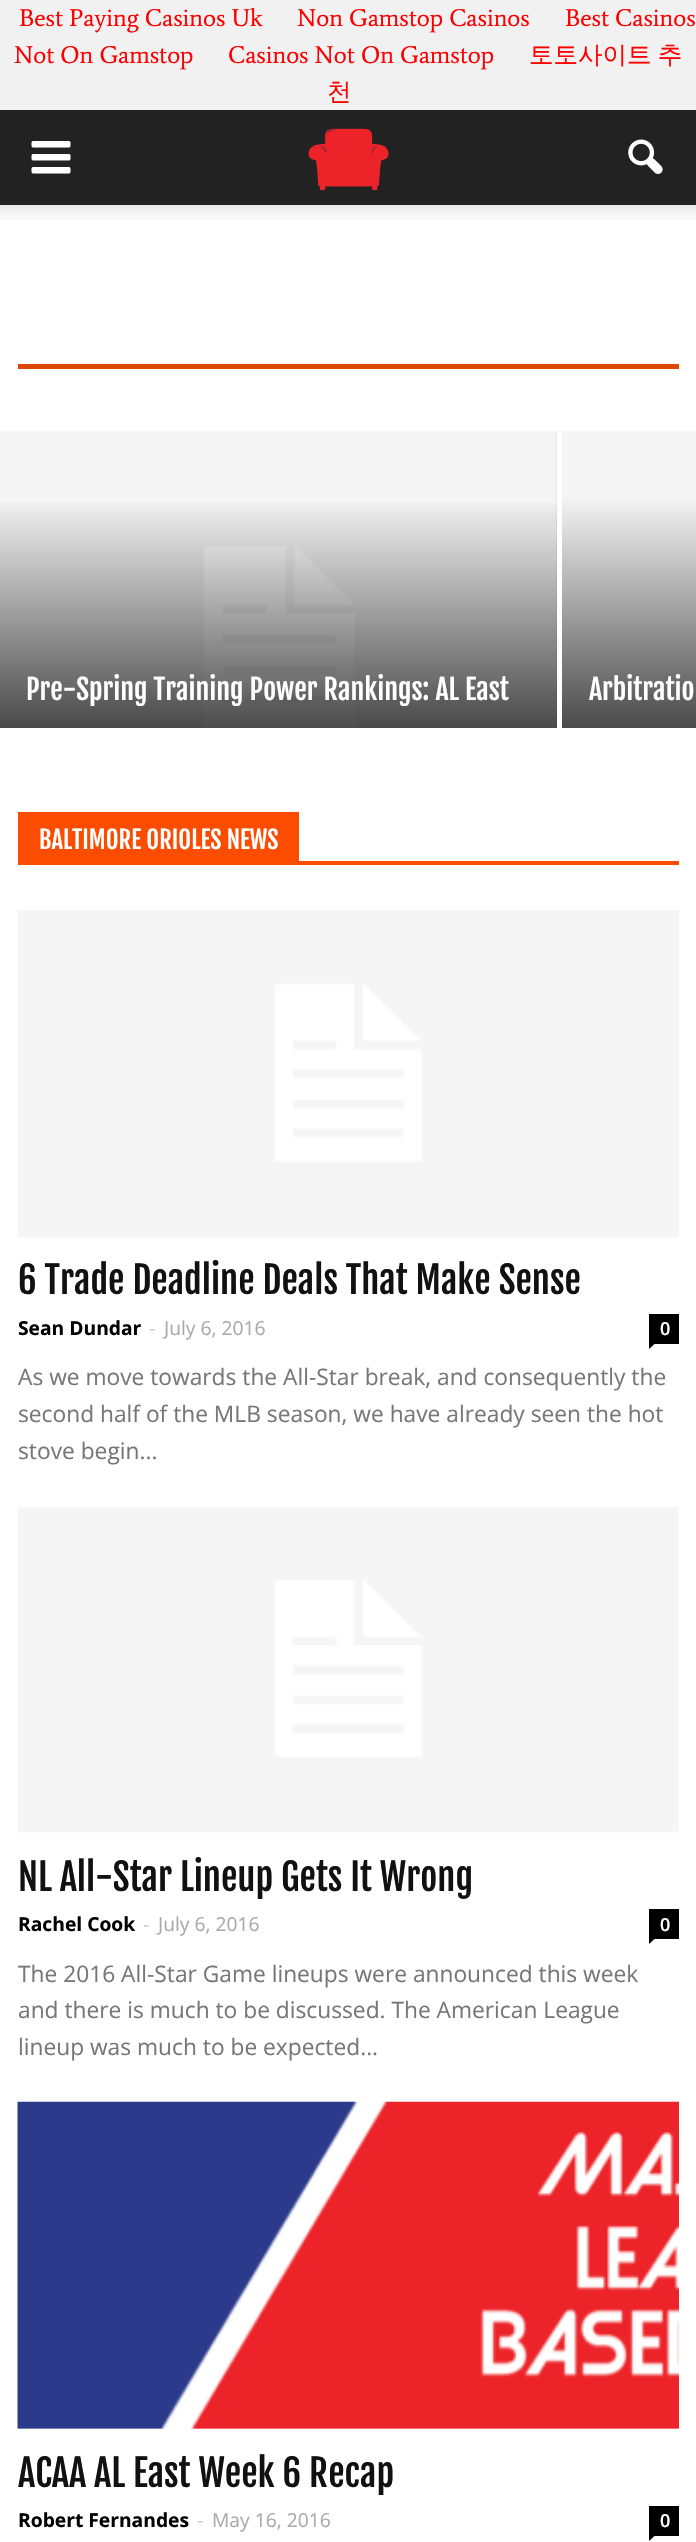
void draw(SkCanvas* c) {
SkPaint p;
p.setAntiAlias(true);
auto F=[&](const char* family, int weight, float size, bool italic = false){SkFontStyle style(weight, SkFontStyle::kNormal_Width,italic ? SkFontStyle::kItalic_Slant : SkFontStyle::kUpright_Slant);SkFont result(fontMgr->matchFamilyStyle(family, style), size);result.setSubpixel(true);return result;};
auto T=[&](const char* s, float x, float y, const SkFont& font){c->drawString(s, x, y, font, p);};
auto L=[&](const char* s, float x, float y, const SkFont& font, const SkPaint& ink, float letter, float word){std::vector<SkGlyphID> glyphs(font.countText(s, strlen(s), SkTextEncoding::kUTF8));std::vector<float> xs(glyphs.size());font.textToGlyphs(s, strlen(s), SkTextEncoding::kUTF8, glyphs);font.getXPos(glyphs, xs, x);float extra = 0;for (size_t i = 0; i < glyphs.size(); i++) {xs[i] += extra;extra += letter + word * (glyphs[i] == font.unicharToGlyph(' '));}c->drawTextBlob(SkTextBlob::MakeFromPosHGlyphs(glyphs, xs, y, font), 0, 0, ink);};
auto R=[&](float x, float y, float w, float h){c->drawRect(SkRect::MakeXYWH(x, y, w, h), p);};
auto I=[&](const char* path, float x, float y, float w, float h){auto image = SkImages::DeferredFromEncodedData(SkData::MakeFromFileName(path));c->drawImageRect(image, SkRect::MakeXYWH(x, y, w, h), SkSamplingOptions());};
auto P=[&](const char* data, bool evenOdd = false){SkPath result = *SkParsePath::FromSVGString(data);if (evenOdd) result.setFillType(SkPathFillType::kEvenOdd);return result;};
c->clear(0xfff1f1f1);
auto f1 = F("Average",400,24.5);
p.setColor(0xffff0000);
T("Best Paying Casinos Uk",19,26,f1);
T("Non Gamstop Casinos",297,26,f1);
T("Best Casinos",565,26,f1);
T("Not On Gamstop",14,63,f1);
T("Casinos Not On Gamstop",228,63,f1);
auto f2 = F("WenQuanYi Zen Hei",500,24.5);
L("토토사이트 추",529,63,f2,p,0,-1);
T("천",327,100,f2);
p.setColor(0xff222222);
R(0,110,696,95);
I("1.png",31,141,40,33);
I("2.png",308,128,81,63);
I("3.png",628,139,35,35);
p.setColor(0xffffffff);
R(0,205,696,2337);
I("4.png",0,205,696,15);
p.setColor(0xffdf4601);
R(18,364,661,5);
p.setColor(0xffe5e5e5);
R(0,431,557,297);
I("5.png",0,431,557,297);
{
const SkColor colors[] = {0x00000000,0xb3000000};
const float stops[] = {.4,1};
const SkPoint ends[] = {{278,341}, {278,728}};
p.setShader(SkGradientShader::MakeLinear(ends, colors, stops, 2, SkTileMode::kClamp));
p.setAlpha(255);
}
R(0,503,557,225);
auto f3 = F("Fjalla One",400,28);
p.setShader(nullptr);
p.setColor(0xffffffff);
T("Pre-Spring Training Power Rankings: AL East",26,700,f3);
{
const SkColor colors[] = {0xfff5f5f5,0xff4a4a4a};
const float stops[] = {.4,1};
const SkPoint ends[] = {{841,341}, {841,728}};
p.setShader(SkGradientShader::MakeLinear(ends, colors, stops, 2, SkTileMode::kClamp));
p.setAlpha(255);
}
R(562,431,134,297);
p.setShader(nullptr);
p.setColor(0xffffffff);
T("Arbitratio",589,700,f3);
p.setColor(0xfffc4c00);
R(18,861,661,4);
R(18,812,281,49);
auto f4 = F("Fjalla One",400,24.5);
p.setColor(0xffffffff);
T("BALTIMORE ORIOLES NEWS",39,849,f4);
I("6.png",17,910,662,328);
auto f5 = F("Fjalla One",400,36.75);
p.setColor(0xff111111);
T("6 Trade Deadline Deals That Make Sense",18,1294,f5);
auto f6 = F("Open Sans",700,19.25);
p.setColor(0xff000000);
T("Sean Dundar",18,1335,f6);
auto f7 = F("Open Sans",400,19.25);
p.setColor(0xffcccccc);
T("-",149,1335,f7);
p.setColor(0xffaaaaaa);
T("July 6, 2016",164,1335,f7);
p.setColor(0xff000000);
R(649,1314,30,30);
auto f8 = F("Open Sans",600,18);
p.setColor(0xffffffff);
T("0",660,1335,f8);
p.setColor(0xff000000);
c->drawPath(P("M649 1344h5.5l-5.5 5z"),p);
auto f9 = F("Open Sans",400,22.75);
p.setColor(0xff777777);
T("As we move towards the All-Star break, and consequently the",18,1385,f9);
T("second half of the MLB season, we have already seen the hot",18,1422,f9);
T("stove begin...",18,1459,f9);
I("7.png",17,1507,662,326);
p.setColor(0xff111111);
T("NL All-Star Lineup Gets It Wrong",18,1891,f5);
p.setColor(0xff000000);
T("Rachel Cook",18,1931,f6);
p.setColor(0xffcccccc);
T("-",143,1931,f7);
p.setColor(0xffaaaaaa);
T("July 6, 2016",158,1931,f7);
p.setColor(0xff000000);
R(649,1909,30,30);
p.setColor(0xffffffff);
T("0",660,1931,f8);
p.setColor(0xff000000);
c->drawPath(P("M649 1939h5.5l-5.5 5z"),p);
c->save();
c->clipRect(SkRect::MakeXYWH(18,812,661,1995));
p.setColor(0xff777777);
T("The 2016 All-Star Game lineups were announced this week",18,1982,f9);
c->restore();
T("and there is much to be discussed. The American League",18,2018,f9);
T("lineup was much to be expected...",18,2055,f9);
I("8.png",17,2101,662,328);
p.setColor(0xff111111);
T("ACAA AL East Week 6 Recap",18,2487,f5);
p.setColor(0xff000000);
T("Robert Fernandes",18,2527,f6);
p.setColor(0xffcccccc);
T("-",197,2527,f7);
p.setColor(0xffaaaaaa);
T("May 16, 2016",212,2527,f7);
p.setColor(0xff000000);
R(649,2506,30,30);
p.setColor(0xffffffff);
T("0",660,2527,f8);
p.setColor(0xff000000);
c->drawPath(P("M649 2536h5.5l-5.5 5z"),p);
}
